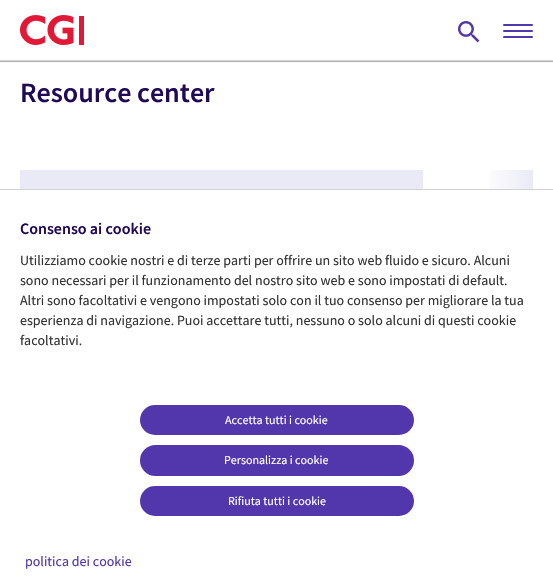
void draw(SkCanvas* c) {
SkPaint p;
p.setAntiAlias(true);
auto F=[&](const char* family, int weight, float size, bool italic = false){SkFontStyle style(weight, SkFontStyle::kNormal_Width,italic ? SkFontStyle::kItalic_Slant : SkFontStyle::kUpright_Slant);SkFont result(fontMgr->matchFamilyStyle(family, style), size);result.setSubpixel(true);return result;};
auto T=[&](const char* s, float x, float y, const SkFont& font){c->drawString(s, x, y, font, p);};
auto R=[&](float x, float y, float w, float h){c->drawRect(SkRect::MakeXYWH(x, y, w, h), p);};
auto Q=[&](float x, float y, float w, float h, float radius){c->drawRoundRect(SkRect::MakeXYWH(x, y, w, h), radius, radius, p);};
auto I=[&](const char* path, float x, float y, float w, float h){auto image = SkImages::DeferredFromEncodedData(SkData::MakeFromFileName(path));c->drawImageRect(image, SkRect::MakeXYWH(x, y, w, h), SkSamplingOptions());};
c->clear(0xffffffff);
p.setColor(0x40000000);
p.setMaskFilter(SkMaskFilter::MakeBlur(kNormal_SkBlurStyle, .5));
c->drawRect(SkRect::MakeXYWH(0,2,553,59),p);
p.setMaskFilter(nullptr);
p.setMaskFilter(SkMaskFilter::MakeBlur(kNormal_SkBlurStyle, .5));
c->drawRect(SkRect::MakeXYWH(0,1,553,61),p);
p.setMaskFilter(nullptr);
p.setColor(0xffffffff);
R(0,0,553,60);
p.setColor(0xffd2d2d2);
R(0,60,553,1);
I("1.png",20,15,64,30);
I("2.png",458,21,22,22);
p.setColor(0xff5236ab);
Q(503,36,30,2,1);
Q(503,24,30,2,1);
Q(503,30,30,2,1);
auto f1 = F("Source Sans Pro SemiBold",600,28);
p.setColor(0xff200a58);
T("Resource center",20,102,f1);
p.setColor(0xffeaeaf6);
R(20,170,403,19);
{
const SkColor colors[] = {0xffeaeaf6,0x00eaeaf6};
const float stops[] = {0,1};
const SkPoint ends[] = {{533,190}, {483,190}};
p.setShader(SkGradientShader::MakeLinear(ends, colors, stops, 2, SkTileMode::kClamp));
p.setAlpha(255);
}
R(489,170,44,19);
p.setShader(nullptr);
p.setColor(0xffd2d2d2);
R(0,189,553,1);
auto f2 = F("Source Sans Pro SemiBold",600,16);
p.setColor(0xff200a58);
T("Consenso ai cookie",20,234,f2);
auto f3 = F("Source Sans Pro",400,14);
p.setColor(0xff333333);
T("Utilizziamo cookie nostri e di terze parti per offrire un sito web fluido e sicuro. Alcuni",20,265,f3);
T("sono necessari per il funzionamento del nostro sito web e sono impostati di default.",20,285,f3);
T("Altri sono facoltativi e vengono impostati solo con il tuo consenso per migliorare la tua",20,305,f3);
T("esperienza di navigazione. Puoi accettare tutti, nessuno o solo alcuni di questi cookie",20,325,f3);
T("facoltativi.",20,345,f3);
p.setColor(0xff5236ab);
c->drawRoundRect(SkRect::MakeXYWH(141,406,272,28),14,14,p);
p.setStroke(true);
p.setStrokeWidth(2);
c->drawRoundRect(SkRect::MakeXYWH(141,406,272,28),14,14,p);
auto f4 = F("Source Sans Pro",400,12);
p.setStroke(false);
p.setColor(0xffffffff);
T("Accetta tutti i cookie",225,424,f4);
p.setColor(0xff5236ab);
c->drawRoundRect(SkRect::MakeXYWH(141,446,272,29),14.5,14.5,p);
p.setStroke(true);
c->drawRoundRect(SkRect::MakeXYWH(141,446,272,29),14.5,14.5,p);
p.setStroke(false);
p.setColor(0xffffffff);
T("Personalizza i cookie",224,464,f4);
p.setColor(0xff5236ab);
c->drawRoundRect(SkRect::MakeXYWH(141,487,272,28),14,14,p);
p.setStroke(true);
c->drawRoundRect(SkRect::MakeXYWH(141,487,272,28),14,14,p);
p.setStroke(false);
p.setColor(0xffffffff);
T("Rifiuta tutti i cookie",228,505,f4);
p.setColor(0xff5236ab);
T("politica dei cookie",25,566,f3);
}
